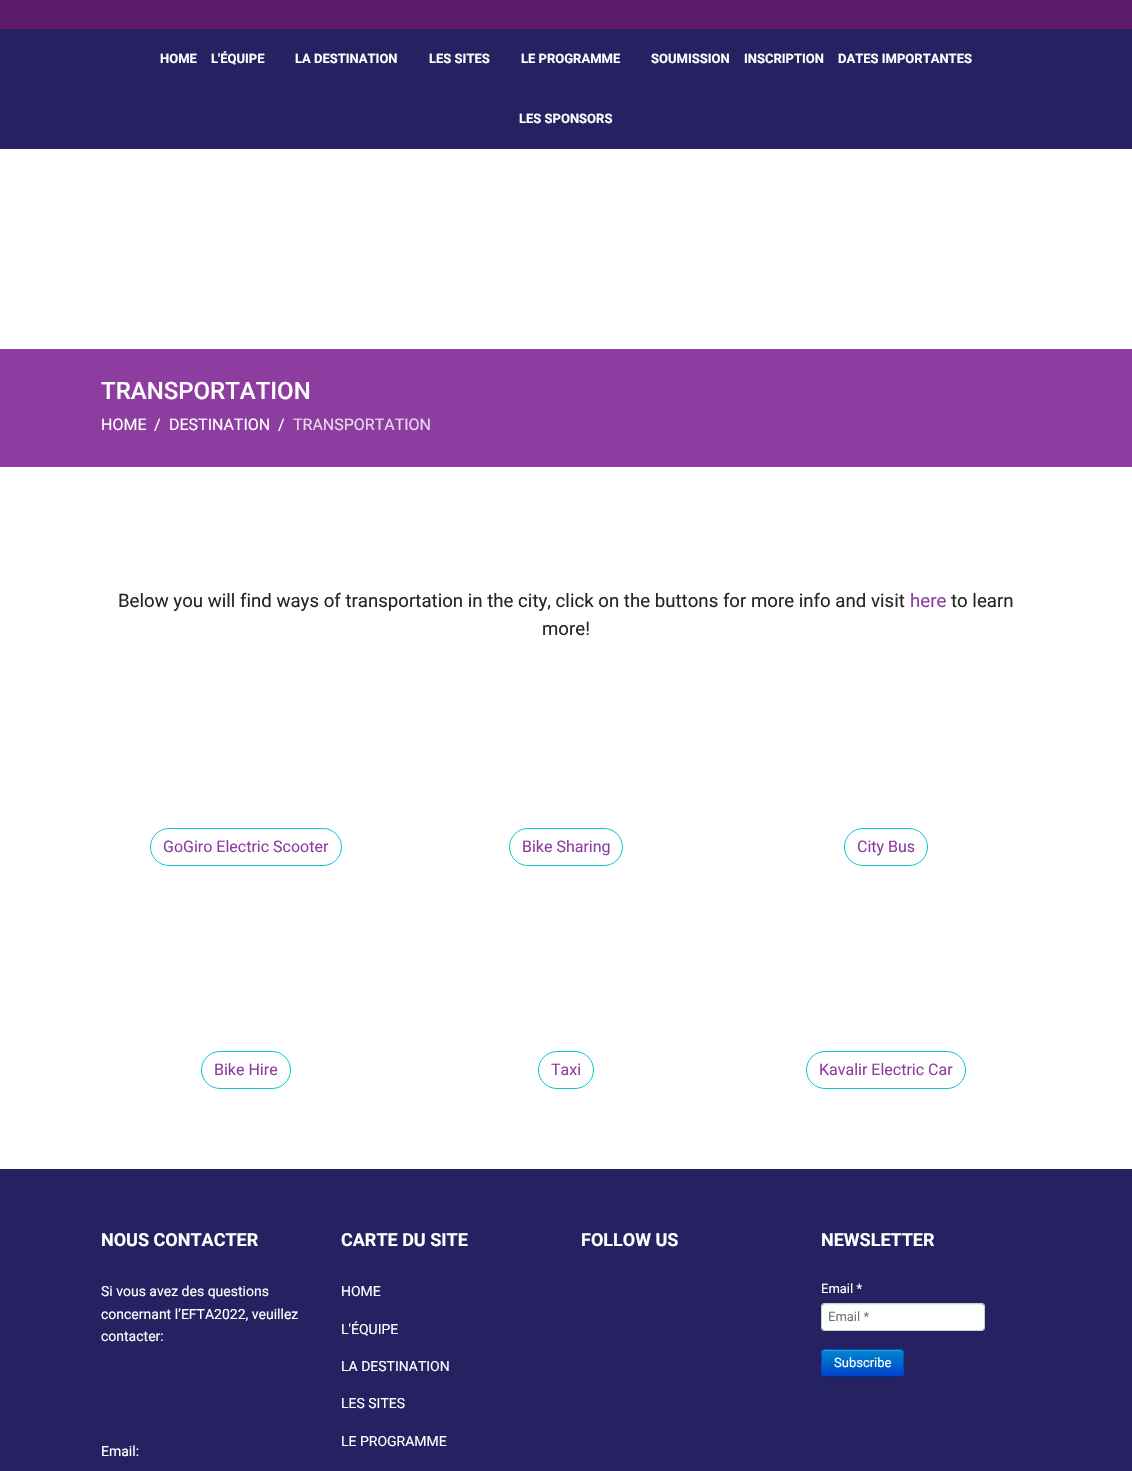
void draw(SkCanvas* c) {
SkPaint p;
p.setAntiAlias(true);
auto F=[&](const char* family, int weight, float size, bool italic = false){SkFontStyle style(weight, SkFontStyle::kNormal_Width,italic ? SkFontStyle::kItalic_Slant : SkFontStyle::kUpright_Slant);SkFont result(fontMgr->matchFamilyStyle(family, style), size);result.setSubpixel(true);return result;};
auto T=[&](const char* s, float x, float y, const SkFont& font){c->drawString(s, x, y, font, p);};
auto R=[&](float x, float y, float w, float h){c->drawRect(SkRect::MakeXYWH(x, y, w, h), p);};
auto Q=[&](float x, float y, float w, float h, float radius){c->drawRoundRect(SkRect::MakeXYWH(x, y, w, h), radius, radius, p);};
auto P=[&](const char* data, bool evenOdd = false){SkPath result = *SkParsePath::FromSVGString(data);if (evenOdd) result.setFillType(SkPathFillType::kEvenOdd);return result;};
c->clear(0xffffffff);
p.setColor(0xff5d1b6c);
R(0,0,1132,29);
p.setColor(0xff262261);
R(0,29,1132,120);
auto f1 = F("Roboto",700,13);
p.setColor(0xffffffff);
T("HOME",160,63,f1);
T("L'ÉQUIPE",211,63,f1);
T("LA DESTINATION",295,63,f1);
T("LES SITES",429,63,f1);
T("LE PROGRAMME",521,63,f1);
T("SOUMISSION",651,63,f1);
T("INSCRIPTION",744,63,f1);
T("DATES IMPORTANTES",838,63,f1);
T("LES SPONSORS",519,123,f1);
p.setColor(0xff8d3da0);
R(0,349,1132,118);
auto f2 = F("Roboto",500,24);
p.setColor(0xffffffff);
T("TRANSPORTATION",101,399,f2);
auto f3 = F("Roboto",400,16);
T("HOME",101,430,f3);
T("/",154,430,f3);
T("DESTINATION",169,430,f3);
T("/",278,430,f3);
p.setColor(0xffe8d8ec);
T("TRANSPORTATION",293,430,f3);
auto f4 = F("Roboto",400,18.65);
p.setColor(0xff252525);
T("Below you will find ways of transportation in the city, click on the buttons for more info and visit",118,607,f4);
p.setColor(0xff8d3da0);
T("here",910,607,f4);
p.setColor(0xff252525);
T("to learn",951,607,f4);
T("more!",542,635,f4);
p.setStroke(true);
p.setStrokeWidth(1);
p.setColor(0xff0ac9c9);
c->drawRoundRect(SkRect::MakeXYWH(150.5,828.5,191,37),18.5,18.5,p);
p.setStroke(false);
p.setColor(0xff8d3da0);
T("GoGiro Electric Scooter",163,852,f3);
p.setStroke(true);
p.setColor(0xff0ac9c9);
c->drawRoundRect(SkRect::MakeXYWH(509.5,828.5,113,37),18.5,18.5,p);
p.setStroke(false);
p.setColor(0xff8d3da0);
T("Bike Sharing",522,852,f3);
p.setStroke(true);
p.setColor(0xff0ac9c9);
c->drawRoundRect(SkRect::MakeXYWH(844.5,828.5,83,37),18.5,18.5,p);
p.setStroke(false);
p.setColor(0xff8d3da0);
T("City Bus",857,852,f3);
p.setStroke(true);
p.setColor(0xff0ac9c9);
c->drawRoundRect(SkRect::MakeXYWH(201.5,1051.5,89,37),18.5,18.5,p);
p.setStroke(false);
p.setColor(0xff8d3da0);
T("Bike Hire",214,1075,f3);
p.setStroke(true);
p.setColor(0xff0ac9c9);
c->drawRoundRect(SkRect::MakeXYWH(538.5,1051.5,55,37),18.5,18.5,p);
p.setStroke(false);
p.setColor(0xff8d3da0);
T("Taxi",551,1075,f3);
p.setStroke(true);
p.setColor(0xff0ac9c9);
c->drawRoundRect(SkRect::MakeXYWH(806.5,1051.5,159,37),18.5,18.5,p);
p.setStroke(false);
p.setColor(0xff8d3da0);
T("Kavalir Electric Car",819,1075,f3);
p.setColor(0xff262161);
R(0,1169,1132,302);
auto f5 = F("Roboto",700,18);
p.setColor(0xffffffff);
T("NOUS CONTACTER",101,1246,f5);
auto f6 = F("Roboto",400,14);
T("Si vous avez des questions",101,1296,f6);
T("concernant l’EFTA2022, veuillez",101,1319,f6);
T("contacter:",101,1341,f6);
T("Email:",101,1456,f6);
T("CARTE DU SITE",341,1246,f5);
T("HOME",341,1296,f6);
T("L'ÉQUIPE",341,1334,f6);
T("LA DESTINATION",341,1371,f6);
T("LES SITES",341,1408,f6);
T("LE PROGRAMME",341,1446,f6);
T("FOLLOW US",581,1246,f5);
T("NEWSLETTER",821,1246,f5);
auto f7 = F("Roboto",400,13);
T("Email *",821,1293,f7);
Q(822,1304,162,26,2);
p.setColor(0x12000000);
c->drawPath(P("M824 1305h158c1 0 2 1 2 2c0-1 0-3-2-3h-158c-2 0-2 2-2 3c0-1 1-2 2-2z"),p);
p.setStroke(true);
p.setColor(0xffcccccc);
c->drawRoundRect(SkRect::MakeXYWH(821.5,1303.5,163,27),2.5,2.5,p);
p.setStroke(false);
p.setColor(0xff6c757d);
T("Email *",828,1321,f7);
p.setColor(0xff006dcc);
Q(821,1349,83,28,4);
c->save();
c->clipPath(P("M825 1349h75c2 0 4 2 4 4v20c0 2-2 4-4 4h-75c-2 0-4-2-4-4v-20c0-2 2-4 4-4z"),true);
{
const SkColor colors[] = {0xff0088cc,0xff0044cc};
const float stops[] = {0,1};
const SkPoint ends[] = {{863,1350}, {863,1376}};
p.setShader(SkGradientShader::MakeLinear(ends, colors, stops, 2, SkTileMode::kClamp));
p.setAlpha(255);
}
R(821,1350,83,26);
c->restore();
p.setShader(nullptr);
p.setColor(0x33ffffff);
c->drawPath(P("M825 1351h75c2 0 3 1 3 3c0-7-12-4-15-4h-50c-4 0-16-3-16 4c0-2 1-3 3-3z"),p);
p.setStroke(true);
p.setColor(0xff002a80);
c->drawPath(P("M902.5 1375.5l-2 1h-76l-2-1"),p);
p.setColor(0xff0044cc);
c->drawPath(P("M822.5 1375.5c-2-2.5-1-10-1-12.5c0-16-1.5-13.5 16-13.5h50c19.5 0 16-2 16 17c0 2.5 1 7-1 9"),p);
p.setStroke(false);
p.setColor(0xffffffff);
T("Subscribe",834,1367,f7);
}
